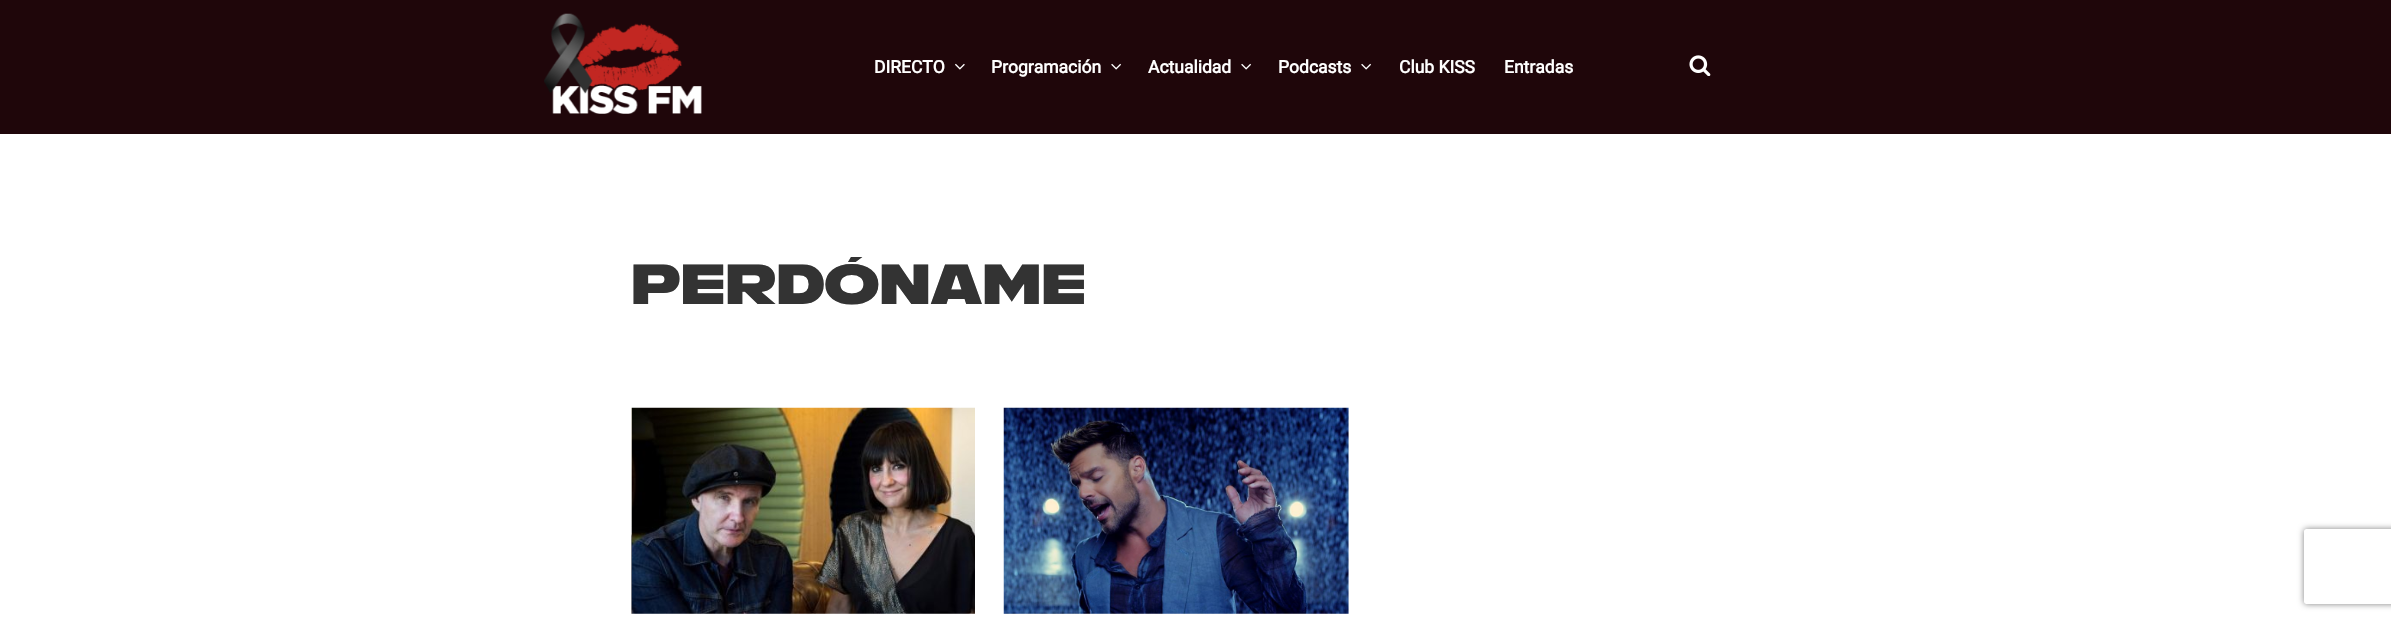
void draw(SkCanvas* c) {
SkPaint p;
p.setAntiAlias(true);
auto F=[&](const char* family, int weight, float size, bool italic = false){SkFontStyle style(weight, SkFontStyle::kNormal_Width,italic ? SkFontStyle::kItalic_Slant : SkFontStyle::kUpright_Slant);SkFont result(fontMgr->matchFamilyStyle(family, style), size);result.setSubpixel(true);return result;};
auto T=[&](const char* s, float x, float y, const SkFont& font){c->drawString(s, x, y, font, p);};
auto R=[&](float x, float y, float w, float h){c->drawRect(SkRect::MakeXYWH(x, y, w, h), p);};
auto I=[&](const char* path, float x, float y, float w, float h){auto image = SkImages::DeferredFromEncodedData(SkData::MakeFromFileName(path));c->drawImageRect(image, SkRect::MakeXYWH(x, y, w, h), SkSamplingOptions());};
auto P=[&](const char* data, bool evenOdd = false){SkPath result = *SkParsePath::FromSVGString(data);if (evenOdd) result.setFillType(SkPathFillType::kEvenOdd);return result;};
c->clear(0xffffffff);
p.setColor(0xff1f060a);
R(0,0,2391,134);
I("1.png",544,13,158,101);
auto f1 = F("Roboto",700,17.5);
p.setColor(0xffffffff);
T("DIRECTO",874,73,f1);
I("2.png",955,63,10,7);
T("Programación",991,73,f1);
I("3.png",1111,63,10,7);
T("Actualidad",1148,73,f1);
I("3.png",1241,63,10,7);
T("Podcasts",1278,73,f1);
I("3.png",1361,63,10,7);
T("Club KISS",1399,73,f1);
T("Entradas",1504,73,f1);
I("4.png",1689,55,22,21);
auto f2 = F("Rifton",400,56.25);
p.setColor(0xff333333);
T("Perdóname",631,304,f2);
I("5.png",631,407,344,207);
I("6.png",1003,407,346,207);
c->save();
c->clipPath(P("M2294 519h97v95h-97zm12.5 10h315c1.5 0 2.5 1 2.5 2.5v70c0 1.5-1 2.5-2.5 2.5h-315c-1.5 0-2.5-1-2.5-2.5v-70c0-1.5 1-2.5 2.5-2.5z",true),true);
p.setColor(0xff808080);
p.setMaskFilter(SkMaskFilter::MakeBlur(kNormal_SkBlurStyle, 3));
c->drawRoundRect(SkRect::MakeXYWH(2304,529,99,75),2.5,2.5,p);
p.setMaskFilter(nullptr);
c->restore();
}
